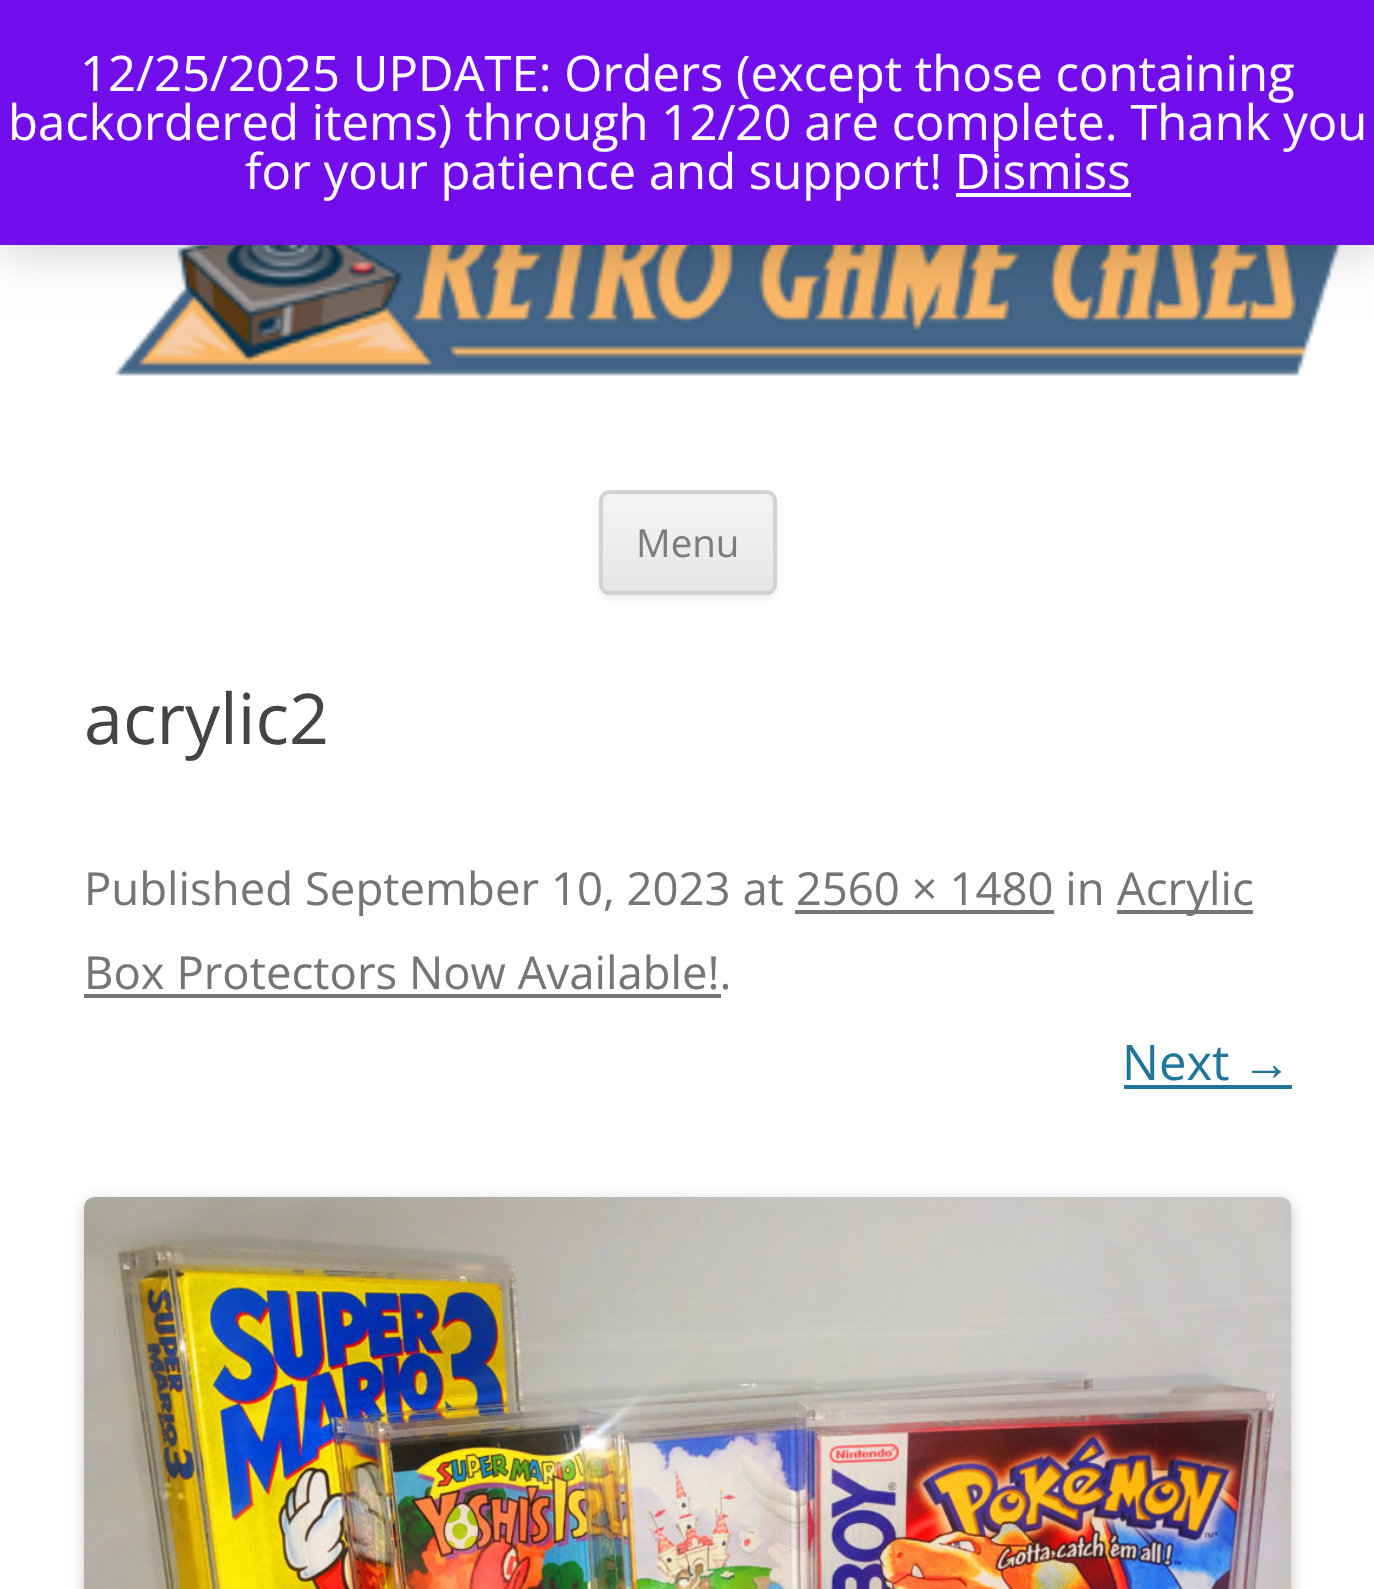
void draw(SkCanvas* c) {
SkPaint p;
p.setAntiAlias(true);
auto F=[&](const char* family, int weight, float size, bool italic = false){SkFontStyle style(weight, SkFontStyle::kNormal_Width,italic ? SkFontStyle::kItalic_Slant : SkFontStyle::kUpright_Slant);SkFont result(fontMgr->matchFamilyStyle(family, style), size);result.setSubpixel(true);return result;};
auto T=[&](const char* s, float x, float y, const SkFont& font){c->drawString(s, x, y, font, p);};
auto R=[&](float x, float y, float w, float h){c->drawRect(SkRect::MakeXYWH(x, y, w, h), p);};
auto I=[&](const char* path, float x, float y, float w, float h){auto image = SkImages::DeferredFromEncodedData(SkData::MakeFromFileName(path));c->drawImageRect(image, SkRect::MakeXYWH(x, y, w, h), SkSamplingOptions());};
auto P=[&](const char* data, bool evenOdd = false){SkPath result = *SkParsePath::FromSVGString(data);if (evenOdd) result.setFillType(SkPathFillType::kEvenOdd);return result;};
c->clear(0xffffffff);
I("1.png",114,245,1228,131);
p.setColor(0x33000000);
p.setMaskFilter(SkMaskFilter::MakeBlur(kNormal_SkBlurStyle, 24.5));
c->drawRect(SkRect::MakeXYWH(0,4,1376,245),p);
p.setMaskFilter(nullptr);
p.setColor(0xff720eec);
R(0,0,1374,245);
auto f1 = F("Open Sans",400,49);
p.setColor(0xfffcfbfe);
T("12/25/2025 UPDATE: Orders (except those containing",80,91,f1);
T("backordered items) through 12/20 are complete. Thank you",8,140,f1);
T("for your patience and support! Dismiss",245,189,f1);
R(956,193,175,4);
p.setColor(0x1a404040);
p.setMaskFilter(SkMaskFilter::MakeBlur(kNormal_SkBlurStyle, 3.5));
c->drawRoundRect(SkRect::MakeXYWH(599,494,178,105),11,11,p);
p.setMaskFilter(nullptr);
c->save();
c->clipPath(P("M610 490h156c6 0 11 5 11 11v83c0 6-5 11-11 11h-156c-6 0-11-5-11-11v-83c0-6 5-11 11-11z"),true);
{
const SkColor colors[] = {0xfff4f4f4,0xffe6e6e6};
const float stops[] = {0,1};
const SkPoint ends[] = {{688,494}, {688,592}};
p.setShader(SkGradientShader::MakeLinear(ends, colors, stops, 2, SkTileMode::kClamp));
p.setAlpha(255);
}
R(599,494,178,98);
c->restore();
p.setStroke(true);
p.setStrokeWidth(4);
p.setShader(nullptr);
p.setColor(0xffd2d2d2);
c->drawRoundRect(SkRect::MakeXYWH(601,492,174,101),9,9,p);
auto f2 = F("Open Sans",400,38.5);
p.setStroke(false);
p.setColor(0xff7c7c7c);
T("Menu",636,557,f2);
auto f3 = F("Open Sans",400,70);
p.setColor(0xff444444);
T("acrylic2",84,744,f3);
auto f4 = F("Open Sans",400,45.5);
p.setColor(0xff757575);
T("Published September 10, 2023 at 2560 × 1480 in",84,905,f4);
R(1117,910,136,4);
T("Acrylic",1117,905,f4);
R(795,910,259,4);
T("Box Protectors Now Available!.",84,989,f4);
R(84,994,637,4);
p.setColor(0xff21759b);
T("Next",1122,1080,f1);
auto f5 = F("Liberation Sans",400,49);
T("→",1242,1080,f5);
R(1124,1085,168,4);
p.setColor(0x33000000);
p.setMaskFilter(SkMaskFilter::MakeBlur(kNormal_SkBlurStyle, 7));
c->drawRoundRect(SkRect::MakeXYWH(84,1201,1208,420),11,11,p);
p.setMaskFilter(nullptr);
I("2.png",84,1197,1208,392);
}
